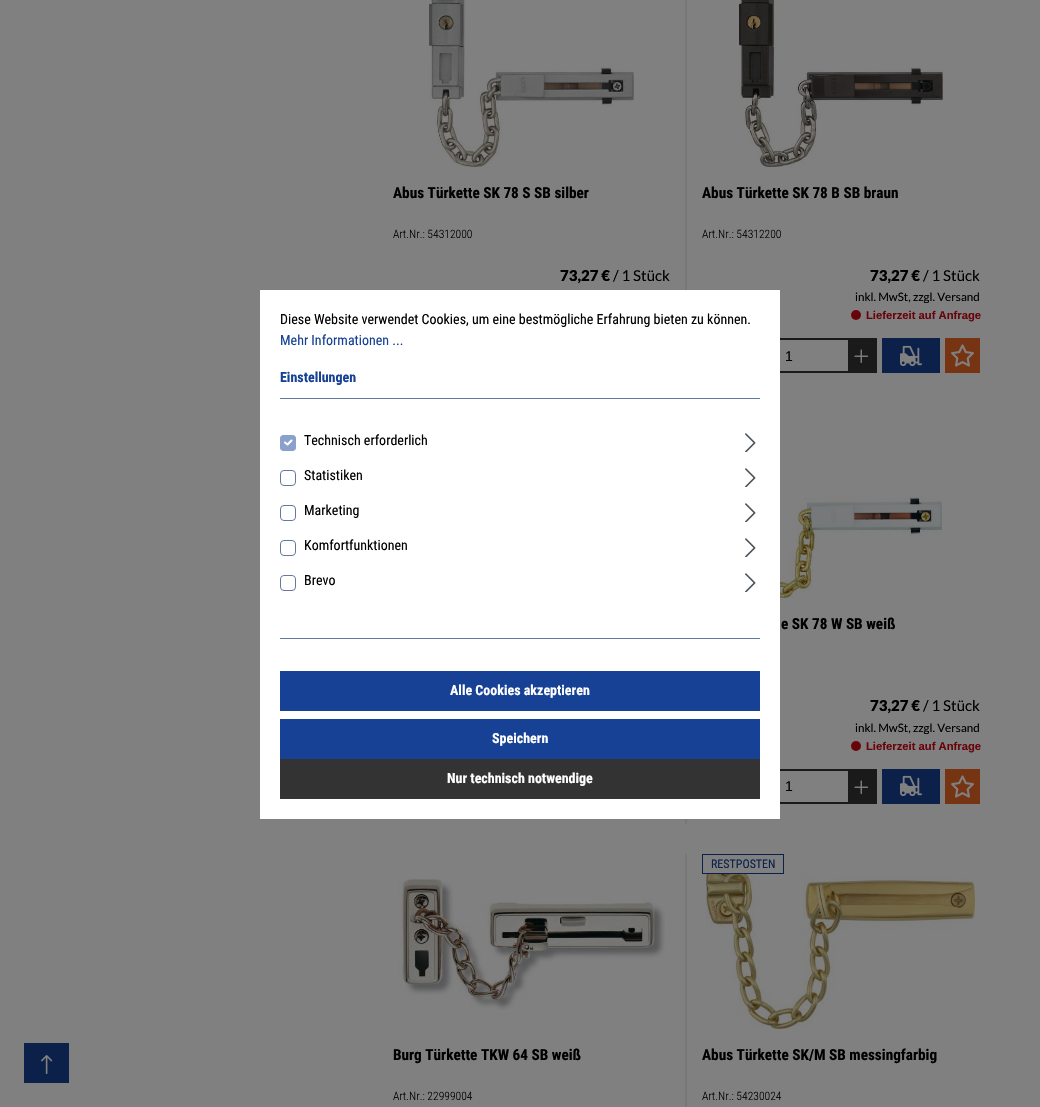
void draw(SkCanvas* c) {
SkPaint p;
p.setAntiAlias(true);
auto F=[&](const char* family, int weight, float size, bool italic = false){SkFontStyle style(weight, SkFontStyle::kNormal_Width,italic ? SkFontStyle::kItalic_Slant : SkFontStyle::kUpright_Slant);SkFont result(fontMgr->matchFamilyStyle(family, style), size);result.setSubpixel(true);return result;};
auto T=[&](const char* s, float x, float y, const SkFont& font){c->drawString(s, x, y, font, p);};
auto R=[&](float x, float y, float w, float h){c->drawRect(SkRect::MakeXYWH(x, y, w, h), p);};
auto Q=[&](float x, float y, float w, float h, float radius){c->drawRoundRect(SkRect::MakeXYWH(x, y, w, h), radius, radius, p);};
auto I=[&](const char* path, float x, float y, float w, float h){auto image = SkImages::DeferredFromEncodedData(SkData::MakeFromFileName(path));c->drawImageRect(image, SkRect::MakeXYWH(x, y, w, h), SkSamplingOptions());};
auto P=[&](const char* data, bool evenOdd = false){SkPath result = *SkParsePath::FromSVGString(data);if (evenOdd) result.setFillType(SkPathFillType::kEvenOdd);return result;};
c->clear(0xff808080);
p.setColor(0xff767876);
R(685,0,2,290);
I("1.png",429,0,205,167);
auto f1 = F("Roboto Condensed",700,15.25);
p.setColor(0xff000000);
T("Abus Türkette SK 78 S SB silber",393,198,f1);
auto f2 = F("Roboto Condensed",300,11.6);
T("Art.Nr.: 54312000",393,238,f2);
auto f3 = F("Lato",900,15);
T("73,27 €",560,281,f3);
auto f4 = F("Lato",400,15);
T("/ 1 Stück",613,281,f4);
I("2.png",739,0,204,167);
T("Abus Türkette SK 78 B SB braun",702,198,f1);
T("Art.Nr.: 54312200",702,238,f2);
T("73,27 €",870,281,f3);
T("/ 1 Stück",923,281,f4);
auto f5 = F("Lato",400,11.6);
T("inkl. MwSt, zzgl. Versand",855,301,f5);
p.setColor(0xff68030a);
c->drawCircle(856,315,5,p);
auto f6 = F("Liberation Sans",700,11.25);
T("Lieferzeit auf Anfrage",866,319,f6);
p.setStroke(true);
p.setStrokeWidth(2);
p.setColor(0xff1a1a1a);
c->drawRect(SkRect::MakeXYWH(703,339,173,33),p);
auto f7 = F("Liberation Sans",400,14);
p.setStroke(false);
p.setColor(0xff000000);
T("1",785,361,f7);
p.setColor(0xff1a1a1a);
R(848,340,27,31);
I("3.png",854,349,15,15);
p.setColor(0xff0b214a);
R(882,338,58,35);
I("4.png",900,345,22,22);
p.setColor(0xff763413);
R(945,338,35,35);
I("5.png",951,344,23,23);
I("6.png",780,423,162,175);
p.setColor(0xff000000);
T("e SK 78 W SB weiß",781,629,f1);
T("73,27 €",870,711,f3);
T("/ 1 Stück",923,711,f4);
T("inkl. MwSt, zzgl. Versand",855,732,f5);
p.setColor(0xff68030a);
c->drawCircle(856,746,5,p);
T("Lieferzeit auf Anfrage",866,750,f6);
p.setStroke(true);
p.setColor(0xff1a1a1a);
c->drawRect(SkRect::MakeXYWH(703,770,173,33),p);
p.setStroke(false);
p.setColor(0xff000000);
T("1",785,791,f7);
p.setColor(0xff1a1a1a);
R(848,771,27,31);
I("3.png",854,780,15,15);
p.setColor(0xff0b214a);
R(882,769,58,35);
I("4.png",900,775,22,22);
p.setColor(0xff763413);
R(945,769,35,35);
I("5.png",951,775,23,23);
p.setColor(0xff767876);
R(685,819,2,5);
R(685,854,2,253);
I("7.png",399,878,266,132);
p.setColor(0xff000000);
T("Burg Türkette TKW 64 SB weiß",393,1060,f1);
T("Art.Nr.: 22999004",393,1100,f2);
I("8.png",706,854,269,175);
p.setColor(0xff808080);
R(706,855,43,18);
p.setStroke(true);
p.setStrokeWidth(1);
p.setColor(0xff0b214a);
c->drawRect(SkRect::MakeXYWH(702.5,854.5,81,19),p);
auto f8 = F("Roboto Condensed",400,12);
p.setStroke(false);
T("RESTPOSTEN",711,868,f8);
p.setColor(0xff000000);
T("Abus Türkette SK/M SB messingfarbig",702,1060,f1);
T("Art.Nr.: 54230024",702,1100,f2);
p.setColor(0xffffffff);
R(260,290,520,529);
p.setColor(0xff63789c);
R(280,398,480,1);
auto f9 = F("Roboto Condensed",400,14);
p.setColor(0xff000000);
T("Diese Website verwendet Cookies, um eine bestmögliche Erfahrung bieten zu können.",280,324,f9);
p.setColor(0xff164194);
T("Mehr Informationen ...",280,345,f9);
auto f10 = F("Roboto Condensed",700,14);
T("Einstellungen",280,382,f10);
p.setColor(0xff63789c);
R(280,638,480,1);
p.setColor(0xff8ba0ca);
Q(280,435,16,16,4);
p.setStroke(true);
p.setStrokeWidth(2.1);
p.setStrokeCap(SkPaint::kRound_Cap);
p.setStrokeJoin(SkPaint::kRound_Join);
p.setColor(0xffffffff);
c->drawPath(P("M285 442.5l2.5 2l4-4"),p);
p.setStrokeWidth(1);
p.setStrokeCap(SkPaint::kButt_Cap);
p.setStrokeJoin(SkPaint::kMiter_Join);
p.setColor(0xff8ba0ca);
c->drawRoundRect(SkRect::MakeXYWH(280.5,435.5,15,15),3.5,3.5,p);
p.setStroke(false);
p.setColor(0xff000000);
T("Technisch erforderlich",304,445,f9);
I("9.png",745,433,11,19);
p.setStroke(true);
p.setColor(0xff63789c);
c->drawRoundRect(SkRect::MakeXYWH(280.5,470.5,15,15),3.5,3.5,p);
p.setStroke(false);
p.setColor(0xff000000);
T("Statistiken",304,480,f9);
I("9.png",745,468,11,19);
p.setStroke(true);
p.setColor(0xff63789c);
c->drawRoundRect(SkRect::MakeXYWH(280.5,505.5,15,15),3.5,3.5,p);
p.setStroke(false);
p.setColor(0xff000000);
T("Marketing",304,515,f9);
I("9.png",745,503,11,19);
p.setStroke(true);
p.setColor(0xff63789c);
c->drawRoundRect(SkRect::MakeXYWH(280.5,540.5,15,15),3.5,3.5,p);
p.setStroke(false);
p.setColor(0xff000000);
T("Komfortfunktionen",304,550,f9);
I("9.png",745,538,11,19);
p.setStroke(true);
p.setColor(0xff63789c);
c->drawRoundRect(SkRect::MakeXYWH(280.5,575.5,15,15),3.5,3.5,p);
p.setStroke(false);
p.setColor(0xff000000);
T("Brevo",304,585,f9);
I("9.png",745,573,11,19);
p.setColor(0xff164194);
R(280,671,480,40);
p.setColor(0xffffffff);
T("Alle Cookies akzeptieren",450,695,f10);
p.setColor(0xff164194);
R(280,719,480,40);
p.setColor(0xffffffff);
T("Speichern",492,743,f10);
p.setColor(0xff333333);
R(280,759,480,40);
p.setColor(0xffffffff);
T("Nur technisch notwendige",447,783,f10);
p.setColor(0xff0b214a);
R(24,1043,45,40);
I("10.png",41,1055,12,19);
}
